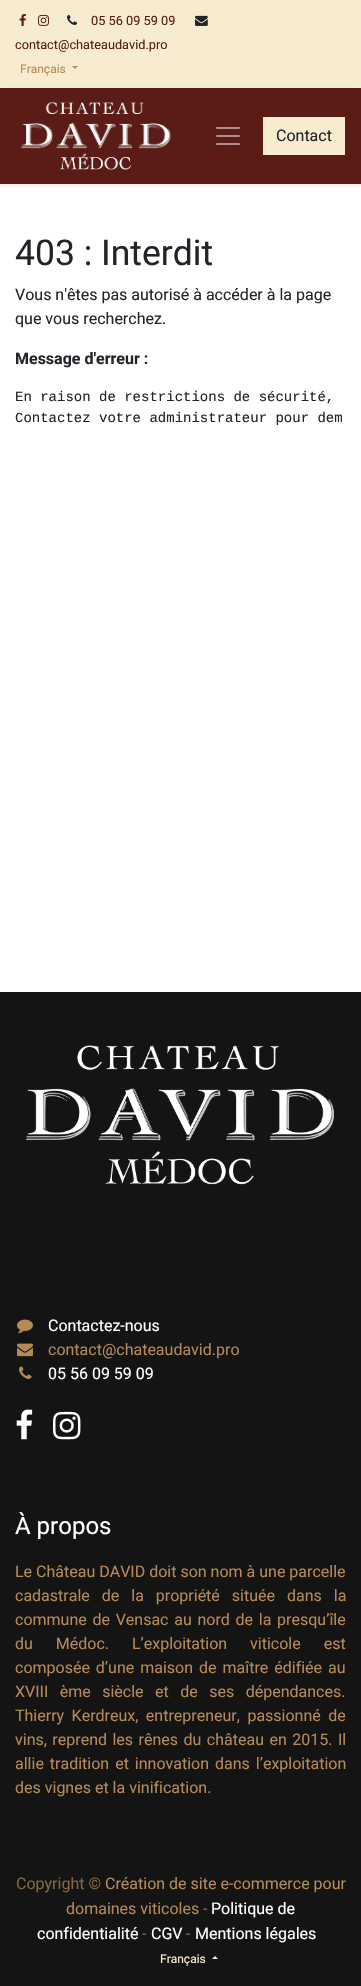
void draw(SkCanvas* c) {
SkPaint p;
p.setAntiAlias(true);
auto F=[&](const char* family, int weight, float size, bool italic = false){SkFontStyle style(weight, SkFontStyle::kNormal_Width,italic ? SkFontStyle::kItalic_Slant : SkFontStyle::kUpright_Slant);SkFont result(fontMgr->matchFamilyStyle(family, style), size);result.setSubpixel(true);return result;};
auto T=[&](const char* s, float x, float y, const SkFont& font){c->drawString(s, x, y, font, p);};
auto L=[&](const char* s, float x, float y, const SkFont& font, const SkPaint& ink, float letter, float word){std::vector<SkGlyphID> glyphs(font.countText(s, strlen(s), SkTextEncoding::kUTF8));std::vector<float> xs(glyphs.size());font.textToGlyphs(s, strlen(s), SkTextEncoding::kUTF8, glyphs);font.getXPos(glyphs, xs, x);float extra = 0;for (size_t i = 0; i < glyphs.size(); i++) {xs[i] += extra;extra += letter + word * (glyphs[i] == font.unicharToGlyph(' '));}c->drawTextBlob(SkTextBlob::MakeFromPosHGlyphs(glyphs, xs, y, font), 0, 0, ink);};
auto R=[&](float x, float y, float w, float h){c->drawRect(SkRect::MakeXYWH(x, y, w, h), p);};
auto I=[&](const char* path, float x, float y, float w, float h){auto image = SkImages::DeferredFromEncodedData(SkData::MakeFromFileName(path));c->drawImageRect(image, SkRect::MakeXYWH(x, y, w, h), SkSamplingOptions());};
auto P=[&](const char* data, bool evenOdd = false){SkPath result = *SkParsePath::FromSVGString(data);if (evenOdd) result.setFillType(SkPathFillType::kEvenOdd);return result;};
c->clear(0xffffffff);
p.setColor(0xfff7ebd0);
R(0,0,361,88);
I("1.png",19,14,7,12);
I("2.png",38,14,11,12);
I("3.png",67,15,10,10);
auto f1 = F("Roboto",400,12.75);
p.setColor(0xff5b1c17);
T("05 56 09 59 09",91,25,f1);
I("4.png",195,15,13,11);
T("contact@chateaudavid.pro",15,49,f1);
auto f2 = F("Roboto",400,12);
p.setColor(0xffb58a57);
T("Français",20,73,f2);
c->drawPath(P("M72 66h6l-3 3z"),p);
p.setColor(0x12000000);
p.setMaskFilter(SkMaskFilter::MakeBlur(kNormal_SkBlurStyle, 2));
c->drawRect(SkRect::MakeXYWH(0,90,361,96),p);
p.setMaskFilter(nullptr);
p.setColor(0xff5b1c17);
R(0,88,361,96);
I("5.png",20,102,151,68);
I("6.png",216,127,24,18);
p.setColor(0xfff7ebd0);
R(263,117,82,38);
auto f3 = F("Roboto",400,16);
p.setColor(0xff212529);
T("Contact",276,141,f3);
auto f4 = F("Roboto",400,35.5);
T("403 : Interdit",15,265,f4);
T("Vous n'êtes pas autorisé à accéder à la page",15,300,f3);
T("que vous recherchez.",15,324,f3);
auto f5 = F("Roboto",700,16);
T("Message d'erreur :",15,364,f5);
auto f6 = F("Liberation Mono",400,14);
T("En raison de restrictions de sécurité,",15,401,f6);
T("Contactez votre administrateur pour dem",15,422,f6);
p.setColor(0xff141414);
R(0,992,361,994);
I("7.png",25,1045,309,140);
I("8.png",17,1319,16,15);
p.setColor(0xffffffff);
T("Contactez-nous",48,1331,f3);
I("9.png",17,1343,16,14);
p.setColor(0xffb58a57);
T("contact@chateaudavid.pro",48,1355,f3);
I("10.png",19,1366,13,13);
p.setColor(0xffffffff);
T("05 56 09 59 09",48,1379,f3);
I("11.png",16,1409,17,31);
I("12.png",53,1411,28,29);
auto f7 = F("Roboto",400,24);
T("À propos",15,1534,f7);
p.setColor(0xffb58a57);
T("Le Château DAVID doit son nom à une parcelle",15,1577,f3);
L("cadastrale de la propriété située dans la",15,1601,f3,p,0,8);
L("commune de Vensac au nord de la presqu’île",15,1625,f3,p,0,1.75);
L("du Médoc. L’exploitation viticole est",15,1649,f3,p,0,19);
L("composée d’une maison de maître édifiée au",15,1673,f3,p,0,2);
L("XVIII ème siècle et de ses dépendances.",15,1697,f3,p,0,7.5);
L("Thierry Kerdreux, entrepreneur, passionné de",15,1721,f3,p,0,3.5);
L("vins, reprend les rênes du château en 2015. Il",15,1745,f3,p,0,1.5);
L("allie tradition et innovation dans l’exploitation",15,1769,f3,p,0,2);
T("des vignes et la vinification.",15,1793,f3);
p.setColor(0xff856743);
T("Copyright ©",16,1889,f3);
p.setColor(0xffb58a57);
T("Création de site e-commerce pour",105,1889,f3);
T("domaines viticoles",66,1914,f3);
p.setColor(0xff856743);
T("-",203,1914,f3);
p.setColor(0xffffffff);
T("Politique de",211,1914,f3);
T("confidentialité",37,1939,f3);
p.setColor(0xff856743);
T("-",142,1939,f3);
p.setColor(0xffffffff);
T("CGV",151,1939,f3);
p.setColor(0xff856743);
T("-",186,1939,f3);
p.setColor(0xffffffff);
T("Mentions légales",195,1939,f3);
p.setColor(0xfff7ebd0);
T("Français",160,1963,f2);
c->drawPath(P("M218 1959h-6l3-3z"),p);
}
